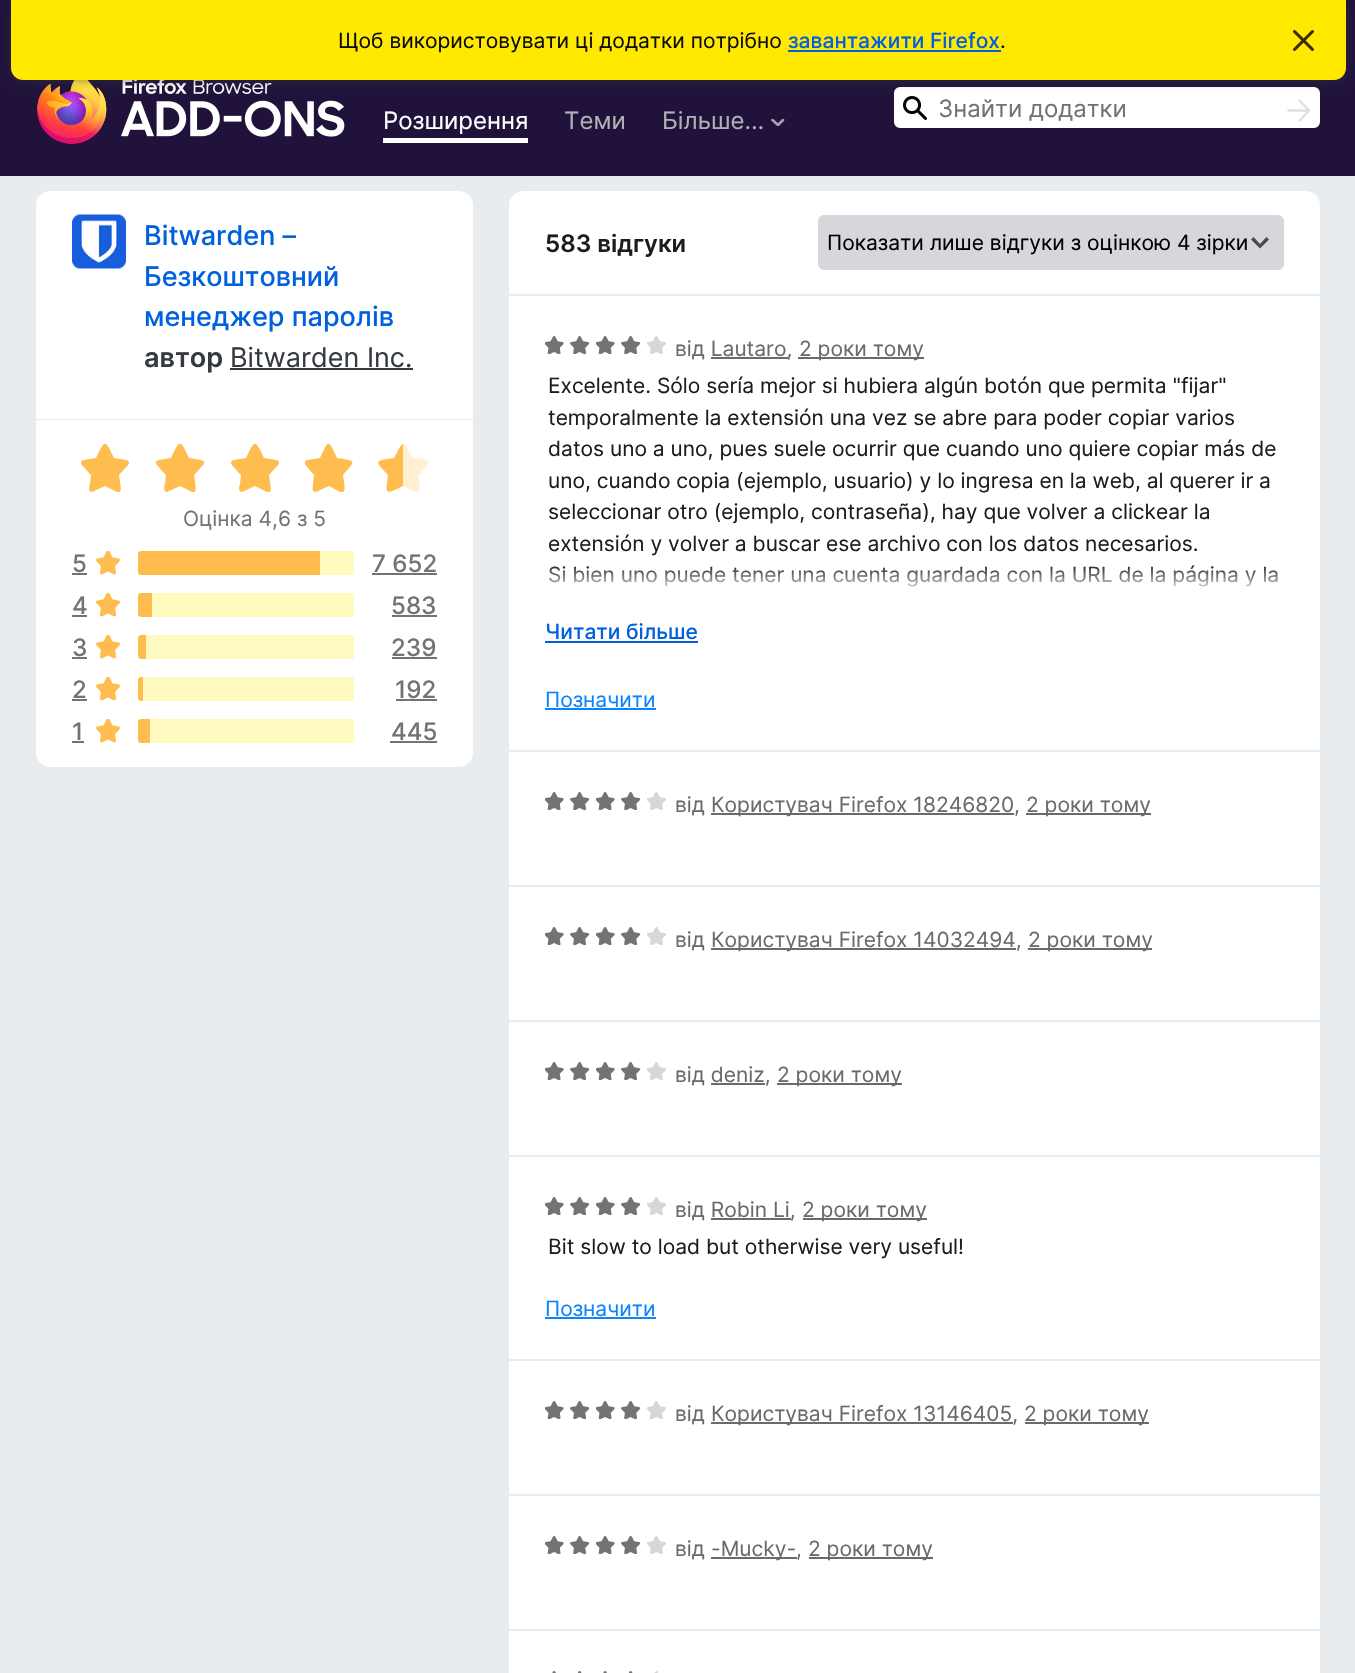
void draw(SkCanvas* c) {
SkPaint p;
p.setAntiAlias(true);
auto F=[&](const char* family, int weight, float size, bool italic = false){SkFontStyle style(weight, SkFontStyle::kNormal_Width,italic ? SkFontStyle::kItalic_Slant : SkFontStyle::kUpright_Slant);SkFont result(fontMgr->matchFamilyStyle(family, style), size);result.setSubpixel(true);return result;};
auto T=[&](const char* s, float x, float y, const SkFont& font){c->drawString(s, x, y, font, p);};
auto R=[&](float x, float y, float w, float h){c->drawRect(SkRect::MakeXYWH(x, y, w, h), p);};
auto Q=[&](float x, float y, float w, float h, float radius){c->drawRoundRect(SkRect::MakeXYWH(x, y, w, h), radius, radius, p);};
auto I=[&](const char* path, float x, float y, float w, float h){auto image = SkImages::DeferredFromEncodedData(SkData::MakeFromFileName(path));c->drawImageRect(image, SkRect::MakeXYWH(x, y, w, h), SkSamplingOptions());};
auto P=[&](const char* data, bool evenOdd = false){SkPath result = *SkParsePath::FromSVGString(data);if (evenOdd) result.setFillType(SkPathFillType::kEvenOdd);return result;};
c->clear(0xff20123a);
I("2.png",37,80,308,64);
p.setColor(0xffffffff);
c->drawRoundRect(SkRect::MakeXYWH(895,88,424,39),5,5,p);
p.setStroke(true);
p.setStrokeWidth(2);
c->drawRoundRect(SkRect::MakeXYWH(895,88,424,39),5,5,p);
I("3.png",903,96,24,24);
p.setStroke(false);
p.setColor(0x80343a40);
p.setMaskFilter(SkMaskFilter::MakeBlur(kNormal_SkBlurStyle, 5));
c->drawRoundRect(SkRect::MakeXYWH(11,2,1335,79),12,12,p);
p.setMaskFilter(nullptr);
p.setColor(0xffffe900);
c->drawPath(P("M11 0h1335v68c0 6.5-5.5 12-12 12h-1311c-6.5 0-12-5.5-12-12z"),p);
auto f1 = F("Inter",400,21);
p.setColor(0xff0c0c0d);
T("Щоб використовувати ці додатки потрібно",338,48,f1);
auto f2 = F("Inter",500,21);
p.setColor(0xff0060df);
T("завантажити Firefox",788,48,f2);
p.setColor(0xff0c0c0d);
T(".",1000,48,f1);
p.setColor(0xff0060df);
R(788,50,213,2);
I("1.png",1293,30,21,21);
auto f3 = F("Inter",400,24);
p.setColor(0xffffffff);
T("Розширення",383,129,f3);
R(383,138,145,5);
p.setColor(0xffb1b1b3);
T("Теми",564,129,f3);
T("Більше…",662,129,f3);
c->save();
c->clipRect(SkRect::MakeXYWH(771,119,14,7));
p.setStroke(true);
p.setStrokeWidth(2.7);
p.setStrokeCap(SkPaint::kRound_Cap);
p.setStrokeJoin(SkPaint::kRound_Join);
p.setColor(0xffa6a0b0);
c->drawPath(P("M783 120l-5 5l-5.5-5"),p);
c->restore();
p.setStroke(false);
p.setColor(0xff737373);
T("Знайти додатки",938,117,f3);
p.setStroke(true);
p.setStrokeWidth(2.5);
p.setColor(0xffe1e1e5);
c->drawPath(P("M1288.5 110.5h19.5m-8.5-10l9.5 10l-9.5 10"),p);
p.setStroke(false);
p.setColor(0xffe9ecef);
R(0,176,1355,1497);
p.setColor(0xffffffff);
c->drawPath(P("M50 191h409c7.5 0 14 6.5 14 14v214h-437v-214c0-7.5 6.5-14 14-14z"),p);
I("4.png",72,214,54,55);
auto f4 = F("Inter",500,27);
p.setColor(0xff0060df);
T("Bitwarden –",144,245,f4);
T("Безкоштовний",144,286,f4);
T("менеджер паролів",144,326,f4);
auto f5 = F("Inter",600,27);
p.setColor(0xff343a40);
T("автор",144,367,f5);
auto f6 = F("Inter",400,27);
T("Bitwarden Inc.",230,367,f6);
R(230,368,183,2);
p.setColor(0xffffffff);
c->drawPath(P("M36 420h437v333c0 7.5-6.5 14-14 14h-409c-7.5 0-14-6.5-14-14z"),p);
c->save();
c->clipRect(SkRect::MakeXYWH(81,444,48,48));
p.setColor(0xffffbd4f);
c->drawPath(P("M92 492c-4 0-3-6-2-8l1-9c-14-15-15-14 5-17c9-19 9-19 18 0c20 3 19 2 5 17l1 7c0 2 3 12-3 10l-12-6z"),p);
c->restore();
c->save();
c->clipRect(SkRect::MakeXYWH(156,444,48,48));
c->drawPath(P("M167 492c-4 0-3-6-2-8l1-9c-14-15-15-14 5-17c9-19 9-19 18 0c20 3 19 2 5 17l1 7c0 2 3 12-3 10l-12-6z"),p);
c->restore();
c->save();
c->clipRect(SkRect::MakeXYWH(231,444,48,48));
c->drawPath(P("M242 492c-4 0-3-6-2-8l1-9c-14-15-15-14 5-17c9-19 9-19 18 0c20 3 19 2 5 17l1 7c0 2 3 12-3 10l-12-6z"),p);
c->restore();
c->save();
c->clipRect(SkRect::MakeXYWH(305,444,48,48));
c->drawPath(P("M316 492c-5 0-3-6-3-8l1-9c-13-15-14-14 6-17c9-19 8-19 17 0c20 3 19 2 6 17l1 7c0 2 3 12-4 10l-11-6z"),p);
c->restore();
{
const SkColor colors[] = {0xffffbd4f,0xffffefd3};
const float stops[] = {.5,.5};
const SkPoint ends[] = {{378,444}, {428,444}};
p.setShader(SkGradientShader::MakeLinear(ends, colors, stops, 2, SkTileMode::kClamp));
p.setAlpha(255);
}
c->drawPath(P("M428 462c-1-3-12-4-16-4c-9-19-8-19-18 0c-20 3-20 2-6 17c-3 20-3 20 15 11c19 9 18 9 15-11c2-2 11-9 10-13z"),p);
p.setShader(nullptr);
p.setColor(0xff737373);
T("Оцінка 4,6 з 5",183,526,f1);
auto f7 = F("Inter",500,24);
T("5",72,572,f7);
R(72,573,15,2);
I("5.png",96,551,24,24);
p.setColor(0xfffffabf);
Q(138,551,216,24,3);
p.setColor(0xffffbd4f);
c->drawPath(P("M141 551h179v24h-179c-1.5 0-3-1.5-3-3v-18c0-1.5 1.5-3 3-3z"),p);
p.setColor(0xff737373);
T("7 652",372,572,f7);
R(372,573,65,2);
T("4",72,614,f7);
R(72,615,15,2);
I("5.png",96,593,24,24);
p.setColor(0xfffffabf);
Q(138,593,216,24,3);
p.setColor(0xffffbd4f);
c->drawPath(P("M141 593h11v24h-11c-1.5 0-3-1.5-3-3v-18c0-1.5 1.5-3 3-3z"),p);
p.setColor(0xff737373);
T("583",391,614,f7);
R(392,615,45,2);
T("3",72,656,f7);
R(72,657,15,2);
I("5.png",96,635,24,24);
p.setColor(0xfffffabf);
Q(138,635,216,24,3);
p.setColor(0xffffbd4f);
c->drawPath(P("M141 635h5v24h-5c-1.5 0-3-1.5-3-3v-18c0-1.5 1.5-3 3-3z"),p);
p.setColor(0xff737373);
T("239",391,656,f7);
R(392,657,45,2);
T("2",72,698,f7);
R(72,699,15,2);
I("5.png",96,677,24,24);
p.setColor(0xfffffabf);
Q(138,677,216,24,3);
p.setColor(0xffffbd4f);
c->drawPath(P("M141 677h2v24h-2c-1.5 0-3-1.5-3-3v-18c0-1.5 1.5-3 3-3z"),p);
p.setColor(0xff737373);
T("192",395,698,f7);
R(396,699,41,2);
T("1",72,740,f7);
R(72,741,12,2);
I("5.png",96,719,24,24);
p.setColor(0xfffffabf);
Q(138,719,216,24,3);
p.setColor(0xffffbd4f);
c->drawPath(P("M141 719h9v24h-9c-1.5 0-3-1.5-3-3v-18c0-1.5 1.5-3 3-3z"),p);
p.setColor(0xff737373);
T("445",391,740,f7);
R(390,741,47,2);
p.setColor(0xffffffff);
c->drawPath(P("M523 191h783c7.5 0 14 6.5 14 14v89h-811v-89c0-7.5 6.5-14 14-14z"),p);
auto f8 = F("Inter",600,24);
p.setColor(0xff1d1d1d);
T("583 відгуки",545,252,f8);
p.setColor(0xffd7d7db);
Q(818,215,466,55,6);
p.setColor(0xff4a4a4f);
c->drawPath(P("M1266.5 237l-6.5 7l-6.5-7l-2.5 2.5l9 9l9-9z",true),p);
p.setColor(0xff000000);
T("Показати лише відгуки з оцінкою 4 зірки",827,250,f1);
p.setColor(0xffffffff);
R(509,296,811,454);
I("6.png",545,336,19,18);
I("7.png",570,336,20,18);
I("6.png",596,336,19,18);
I("7.png",621,336,20,18);
I("8.png",647,336,19,18);
p.setColor(0xff6a6a6a);
T("від Lautaro,",675,356,f1);
R(798,357,126,2);
T("2 роки тому",799,356,f1);
R(711,357,77,2);
p.setColor(0xff1d1d1d);
T("Excelente. Sólo sería mejor si hubiera algún botón que permita \"fijar\"",548,393,f1);
T("temporalmente la extensión una vez se abre para poder copiar varios",548,425,f1);
T("datos uno a uno, pues suele ocurrir que cuando uno quiere copiar más de",548,456,f1);
T("uno, cuando copia (ejemplo, usuario) y lo ingresa en la web, al querer ir a",548,488,f1);
T("seleccionar otro (ejemplo, contraseña), hay que volver a clickear la",548,519,f1);
T("extensión y volver a buscar ese archivo con los datos necesarios.",548,551,f1);
T("Si bien uno puede tener una cuenta guardada con la URL de la página y la",548,582,f1);
{
const SkColor colors[] = {0x00ffffff,0xffffffff};
const float stops[] = {0,1};
const SkPoint ends[] = {{916,564}, {916,594}};
p.setShader(SkGradientShader::MakeLinear(ends, colors, stops, 2, SkTileMode::kClamp));
p.setAlpha(255);
}
R(549,565,729,22);
p.setShader(nullptr);
p.setColor(0xff0060df);
T("Читати більше",545,639,f2);
R(545,641,153,2);
p.setColor(0xff0a84ff);
T("Позначити",545,707,f1);
R(545,708,111,2);
p.setColor(0xffffffff);
R(509,752,811,133);
I("6.png",545,792,19,18);
I("7.png",570,792,20,18);
I("6.png",596,792,19,18);
I("7.png",621,792,20,18);
I("8.png",647,792,19,18);
p.setColor(0xff6a6a6a);
T("від",675,812,f1);
R(711,813,303,2);
T("Користувач Firefox 18246820,",711,812,f1);
R(1026,813,125,2);
T("2 роки тому",1026,812,f1);
p.setColor(0xffffffff);
R(509,887,811,133);
I("6.png",545,927,19,18);
I("7.png",570,927,20,18);
I("6.png",596,927,19,18);
I("7.png",621,927,20,18);
I("8.png",647,927,19,18);
p.setColor(0xff6a6a6a);
T("від",675,947,f1);
R(711,948,305,2);
T("Користувач Firefox 14032494,",711,947,f1);
R(1028,948,124,2);
T("2 роки тому",1028,947,f1);
p.setColor(0xffffffff);
R(509,1022,811,133);
I("6.png",545,1062,19,18);
I("7.png",570,1062,20,18);
I("6.png",596,1062,19,18);
I("7.png",621,1062,20,18);
I("8.png",647,1062,19,18);
p.setColor(0xff6a6a6a);
T("від deniz,",675,1082,f1);
R(777,1083,125,2);
T("2 роки тому",777,1082,f1);
R(711,1083,54,2);
p.setColor(0xffffffff);
R(509,1157,811,202);
I("6.png",545,1197,19,18);
I("7.png",570,1197,20,18);
I("6.png",596,1197,19,18);
I("7.png",621,1197,20,18);
I("8.png",647,1197,19,18);
p.setColor(0xff6a6a6a);
T("від Robin Li,",675,1217,f1);
R(803,1218,124,2);
T("2 роки тому",802,1217,f1);
R(711,1218,80,2);
p.setColor(0xff1d1d1d);
T("Bit slow to load but otherwise very useful!",548,1254,f1);
p.setColor(0xff0a84ff);
T("Позначити",545,1316,f1);
R(545,1317,111,2);
p.setColor(0xffffffff);
R(509,1361,811,133);
I("6.png",545,1401,19,18);
I("7.png",570,1401,20,18);
I("6.png",596,1401,19,18);
I("7.png",621,1401,20,18);
I("8.png",647,1401,19,18);
p.setColor(0xff6a6a6a);
T("від",675,1421,f1);
R(711,1422,302,2);
T("Користувач Firefox 13146405,",711,1421,f1);
R(1025,1422,124,2);
T("2 роки тому",1024,1421,f1);
p.setColor(0xffffffff);
R(509,1496,811,133);
I("6.png",545,1536,19,18);
I("7.png",570,1536,20,18);
I("6.png",596,1536,19,18);
I("7.png",621,1536,20,18);
I("8.png",647,1536,19,18);
p.setColor(0xff6a6a6a);
T("від",675,1556,f1);
R(711,1557,86,2);
T("-Mucky-,",711,1556,f1);
R(809,1557,124,2);
T("2 роки тому",808,1556,f1);
p.setColor(0xffffffff);
R(509,1631,811,42);
I("9.png",552,1671,4,2);
I("10.png",577,1671,5,2);
I("9.png",603,1671,4,2);
I("10.png",628,1671,5,2);
I("11.png",654,1671,4,2);
}
